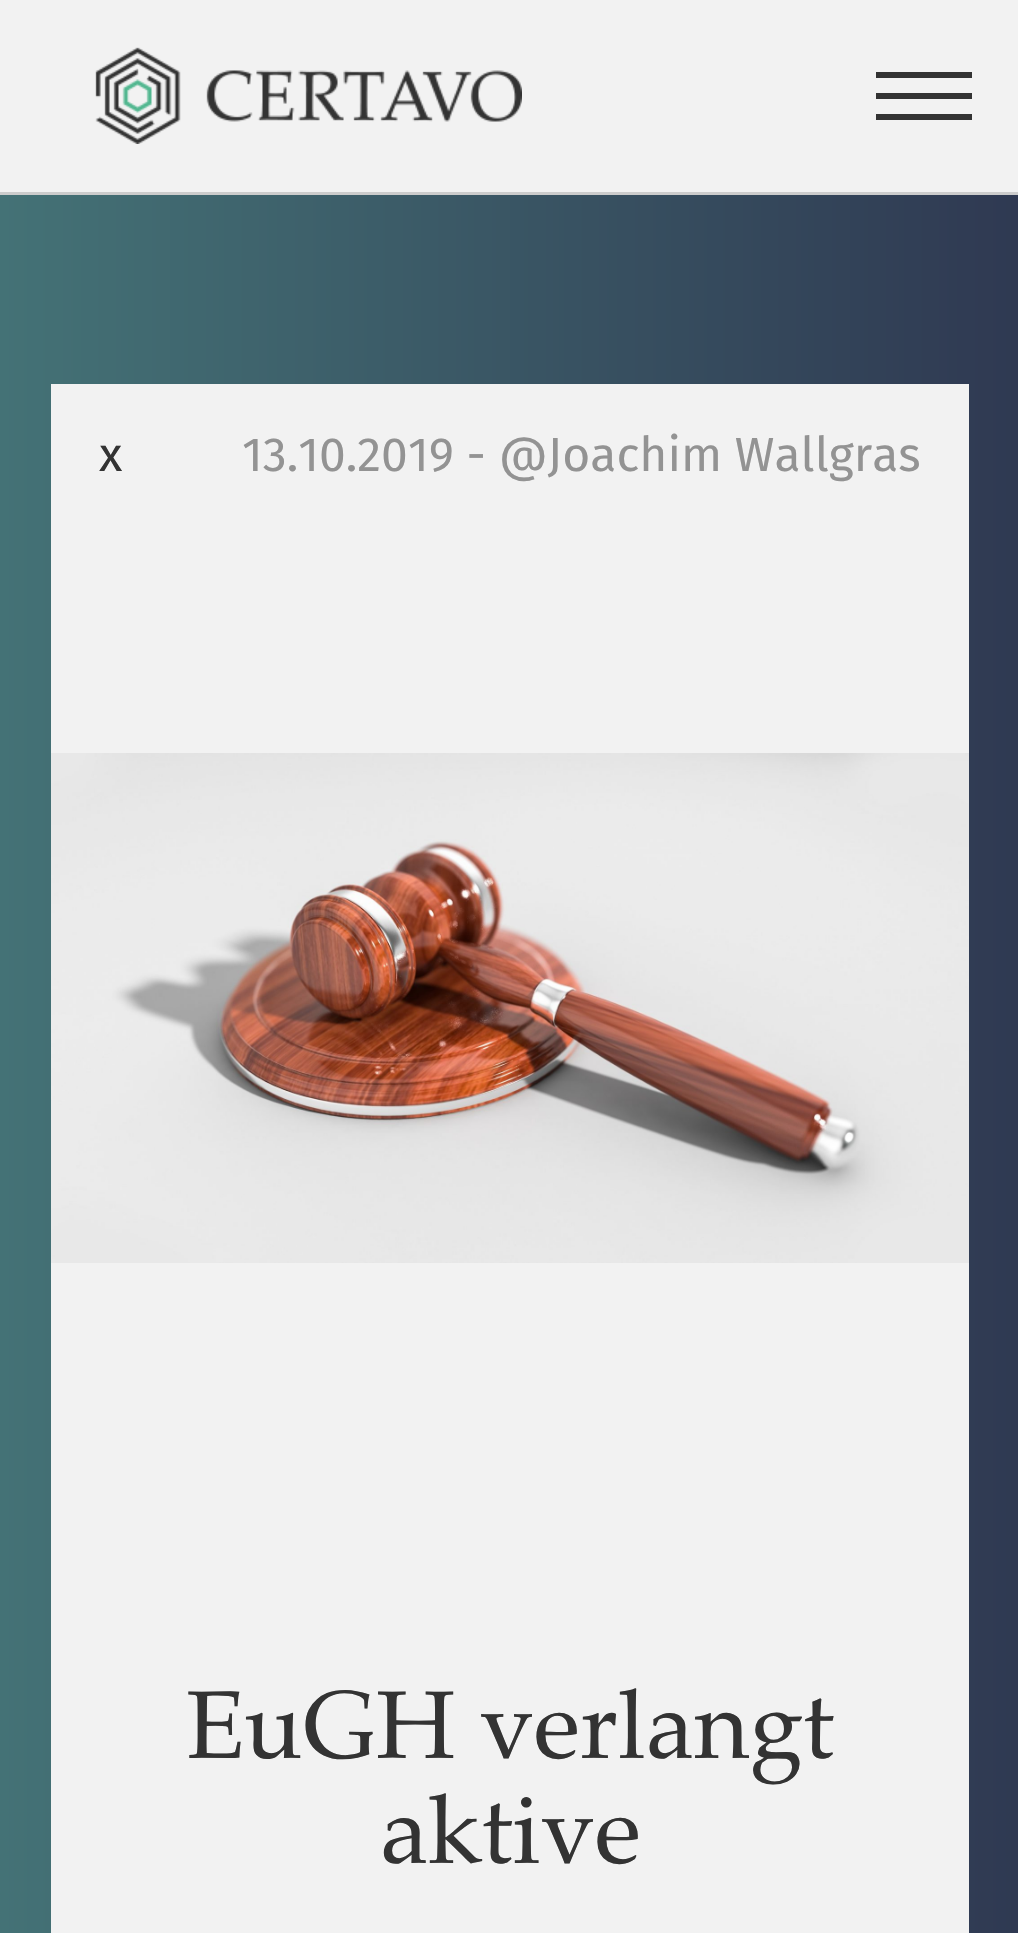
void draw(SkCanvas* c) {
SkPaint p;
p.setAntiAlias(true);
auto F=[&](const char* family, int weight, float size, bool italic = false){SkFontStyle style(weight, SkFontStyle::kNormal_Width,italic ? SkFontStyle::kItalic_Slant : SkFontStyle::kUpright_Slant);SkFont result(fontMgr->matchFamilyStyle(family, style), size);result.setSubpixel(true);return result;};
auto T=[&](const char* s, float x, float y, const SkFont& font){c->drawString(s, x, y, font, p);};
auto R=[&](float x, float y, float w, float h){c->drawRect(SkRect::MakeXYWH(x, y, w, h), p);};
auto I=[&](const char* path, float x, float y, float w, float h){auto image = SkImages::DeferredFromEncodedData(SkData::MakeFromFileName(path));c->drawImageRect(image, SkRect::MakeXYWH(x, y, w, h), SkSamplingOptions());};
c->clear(0xffffffff);
{
const SkColor colors[] = {0xff447276,0xff2f3952};
const float stops[] = {0,1};
const SkPoint ends[] = {{0,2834}, {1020,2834}};
p.setShader(SkGradientShader::MakeLinear(ends, colors, stops, 2, SkTileMode::kClamp));
p.setAlpha(255);
}
R(0,195,1018,1738);
p.setShader(nullptr);
p.setColor(0xfff2f2f2);
R(0,0,1018,192);
p.setColor(0xffcccccc);
R(0,192,1018,3);
I("1.png",95,47,427,97);
p.setColor(0xff333333);
R(876,72,96,6);
R(876,93,96,6);
R(876,114,96,6);
p.setColor(0xfff2f2f2);
R(51,384,918,1549);
auto f1 = F("Fira Sans",400,48);
p.setColor(0xff333333);
T("x",99,471,f1);
p.setColor(0xff939393);
T("13.10.2019 - @Joachim Wallgras",242,471,f1);
I("2.png",51,753,918,510);
auto f2 = F("Palatino",400,96);
p.setColor(0xff333333);
T("EuGH verlangt",186,1758,f2);
T("aktive",380,1863,f2);
}
